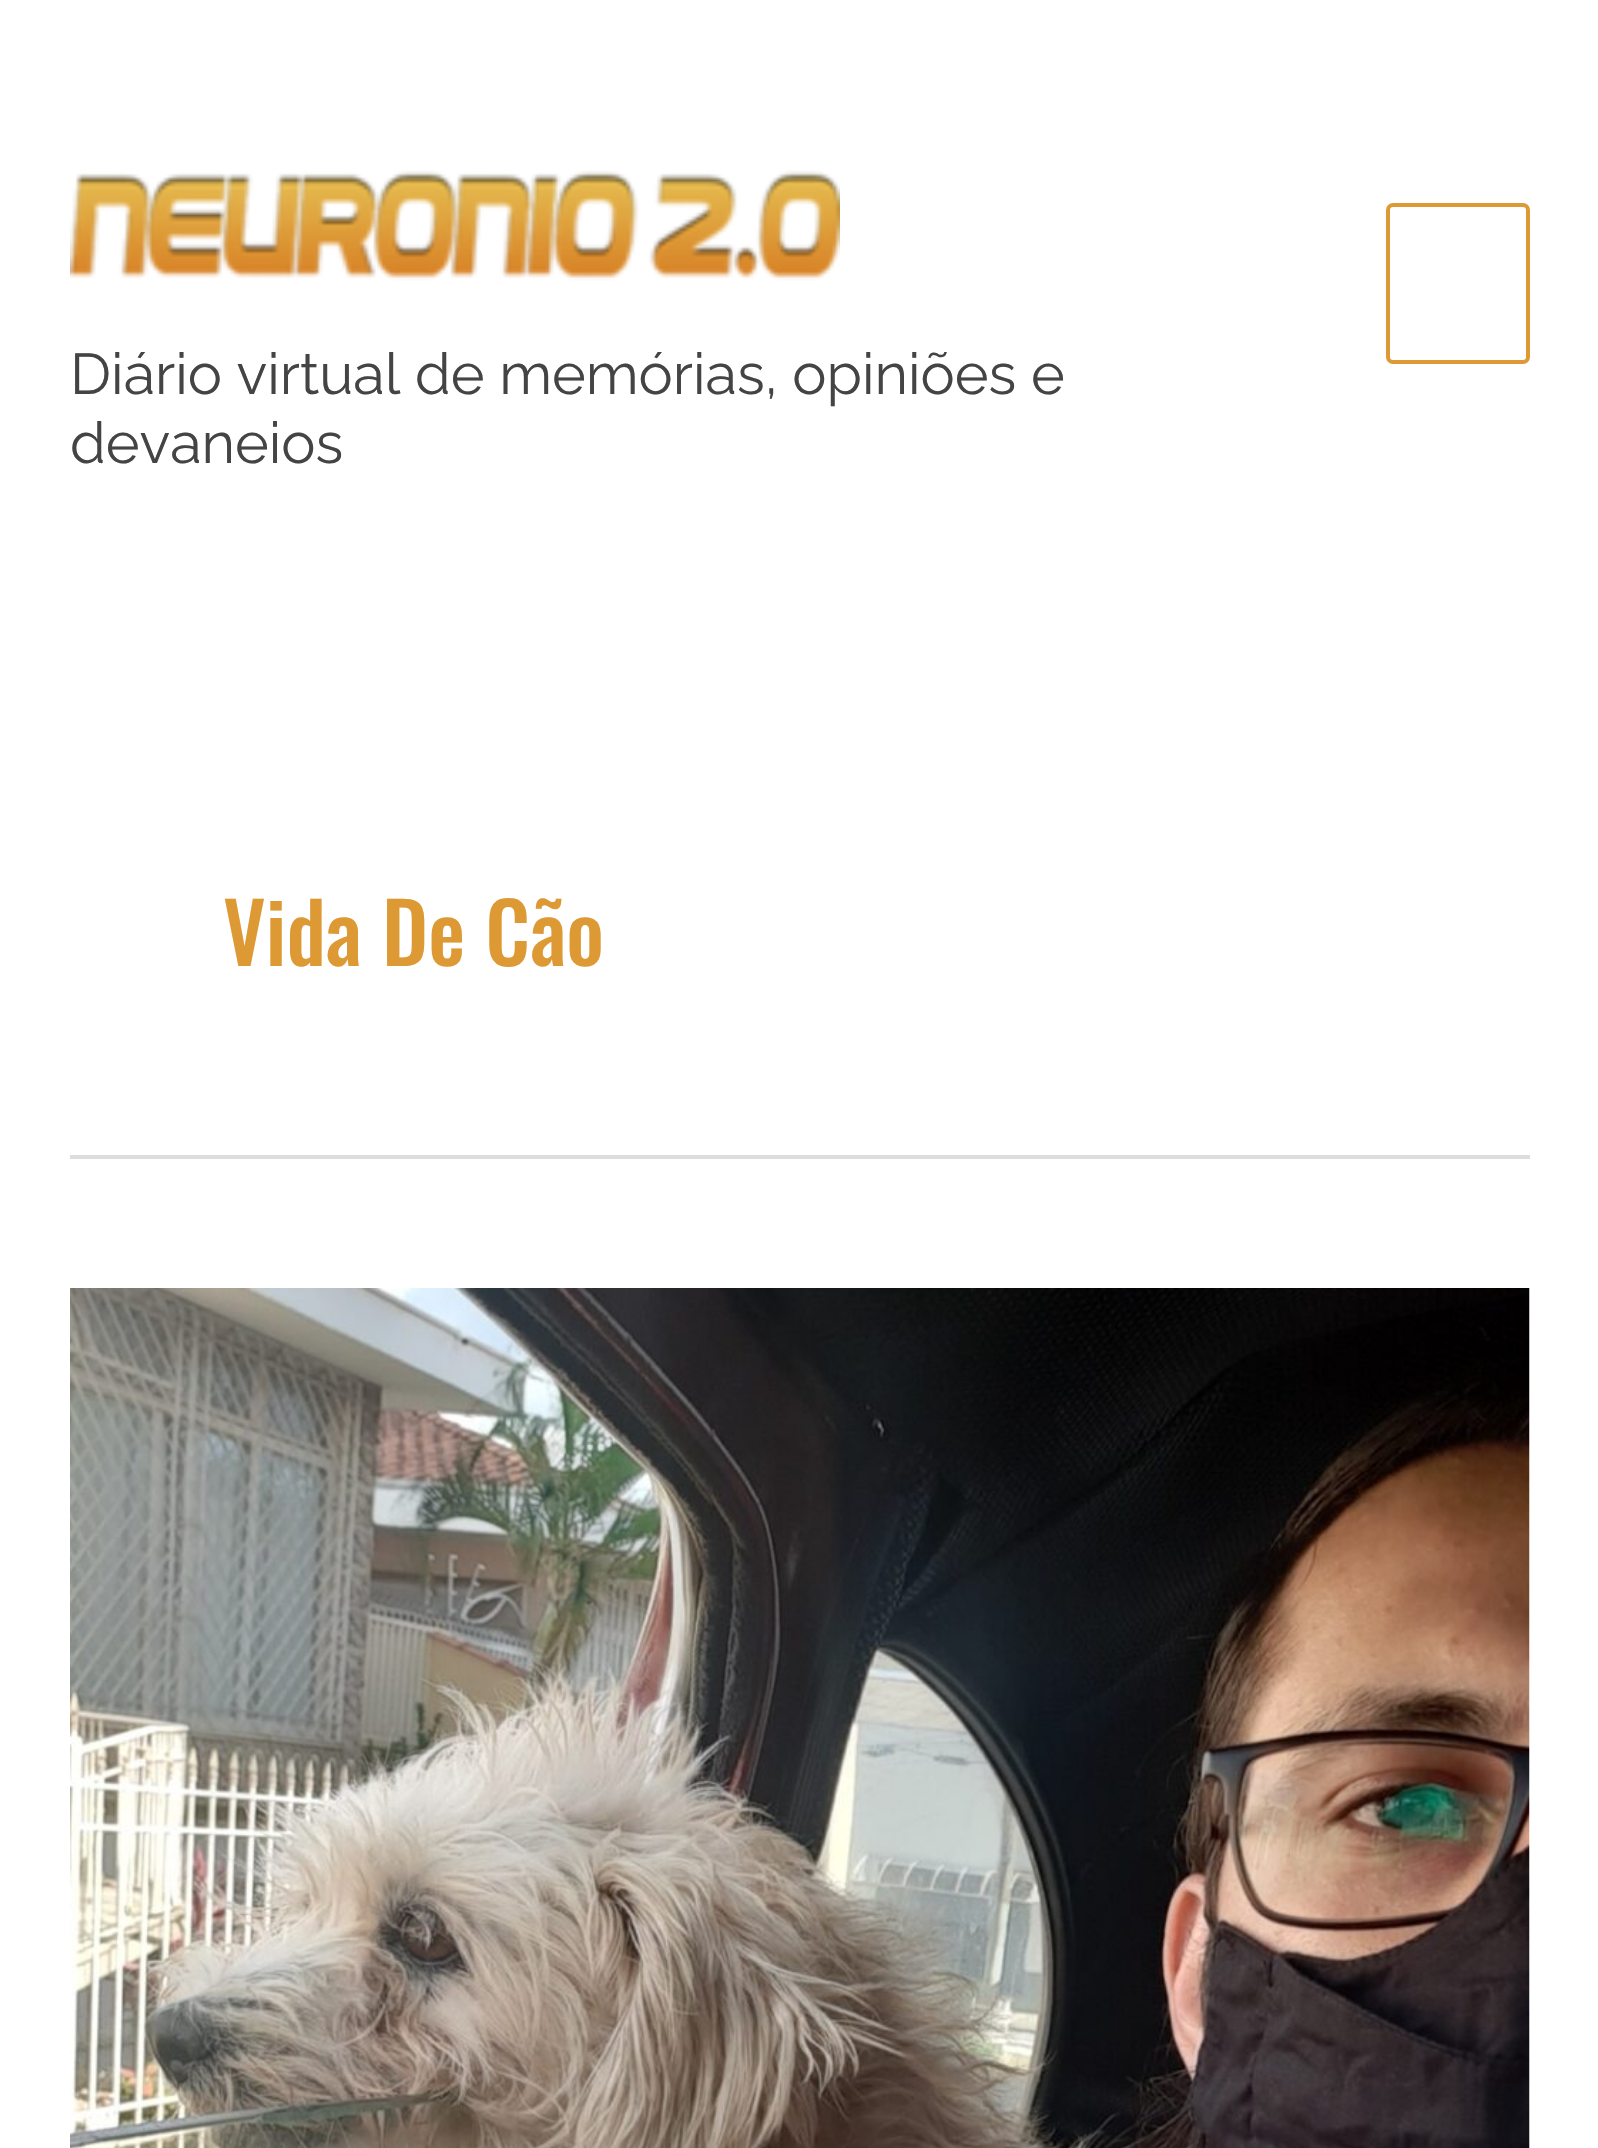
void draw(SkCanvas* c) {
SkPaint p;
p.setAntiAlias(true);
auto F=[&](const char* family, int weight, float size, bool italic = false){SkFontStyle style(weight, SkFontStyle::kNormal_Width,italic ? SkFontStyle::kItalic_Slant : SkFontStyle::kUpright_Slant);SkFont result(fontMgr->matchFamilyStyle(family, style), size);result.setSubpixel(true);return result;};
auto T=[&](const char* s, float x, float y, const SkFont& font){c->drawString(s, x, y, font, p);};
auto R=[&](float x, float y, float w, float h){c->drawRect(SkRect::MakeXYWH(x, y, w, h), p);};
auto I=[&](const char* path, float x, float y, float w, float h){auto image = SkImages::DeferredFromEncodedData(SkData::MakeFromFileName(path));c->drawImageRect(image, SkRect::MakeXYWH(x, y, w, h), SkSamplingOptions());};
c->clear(0xffffffff);
p.setStroke(true);
p.setStrokeWidth(4);
p.setColor(0xffdd9933);
c->drawRoundRect(SkRect::MakeXYWH(1388,205,140,157),5,5,p);
I("1.png",70,170,770,111);
auto f1 = F("Raleway",100,57.5);
p.setStroke(false);
p.setColor(0xff444444);
T("Diário virtual de memórias, opiniões e",70,394,f1);
T("devaneios",70,463,f1);
p.setColor(0xffdddddd);
R(70,1155,1460,4);
auto f2 = F("Oswald",500,83);
p.setColor(0xffdd9933);
T("Vida De Cão",223,966,f2);
I("2.png",70,1288,1460,860);
}
